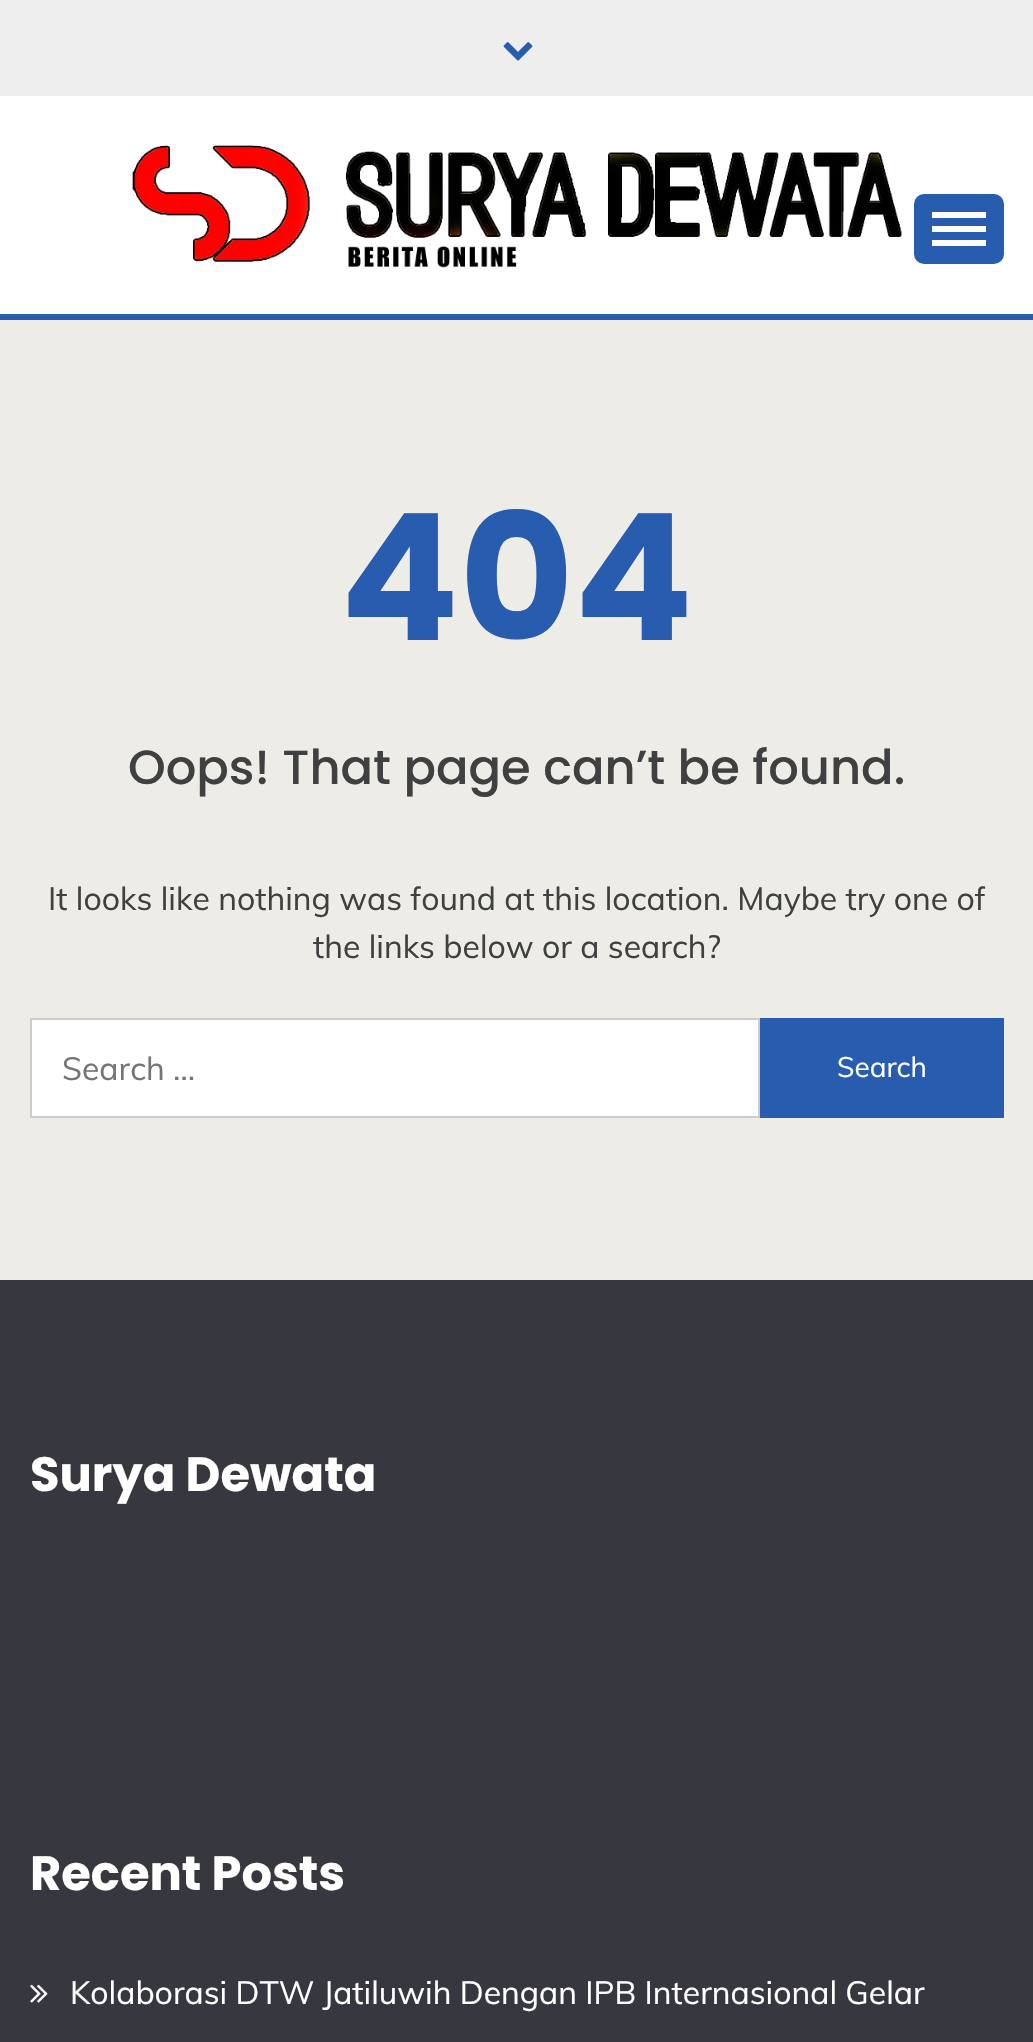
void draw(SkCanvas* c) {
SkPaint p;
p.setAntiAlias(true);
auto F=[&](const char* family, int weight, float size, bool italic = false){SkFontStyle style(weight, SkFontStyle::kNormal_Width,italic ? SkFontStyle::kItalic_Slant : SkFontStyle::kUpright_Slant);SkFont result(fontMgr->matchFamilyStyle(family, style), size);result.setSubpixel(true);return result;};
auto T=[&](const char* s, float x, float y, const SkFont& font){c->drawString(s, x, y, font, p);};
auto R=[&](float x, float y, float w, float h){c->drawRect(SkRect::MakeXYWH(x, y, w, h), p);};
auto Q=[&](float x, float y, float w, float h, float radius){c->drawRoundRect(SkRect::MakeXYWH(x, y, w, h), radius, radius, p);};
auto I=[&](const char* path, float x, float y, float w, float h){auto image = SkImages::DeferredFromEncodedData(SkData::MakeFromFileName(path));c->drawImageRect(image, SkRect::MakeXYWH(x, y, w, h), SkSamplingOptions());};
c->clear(0xffedece6);
p.setColor(0xffffffff);
R(0,96,1033,218);
p.setColor(0xffeeeeee);
R(0,0,1033,96);
I("1.png",503,42,30,19);
I("2.png",132,145,770,123);
p.setColor(0xff285caf);
Q(914,194,90,70,10);
p.setColor(0xffffffff);
R(932,212,54,6);
R(932,226,54,6);
R(932,240,54,6);
p.setColor(0xff285caf);
R(0,314,1033,6);
auto f1 = F("Poppins",700,176);
T("404",340,640,f1);
auto f2 = F("Poppins",500,48);
p.setColor(0xff404040);
T("Oops! That page can’t be found.",128,784,f2);
auto f3 = F("Muli",400,32);
T("It looks like nothing was found at this location. Maybe try one of",48,910,f3);
T("the links below or a search?",313,958,f3);
p.setColor(0xffffffff);
c->drawRect(SkRect::MakeXYWH(31,1019,728,98),p);
p.setStroke(true);
p.setStrokeWidth(2);
p.setColor(0xffcccccc);
c->drawRect(SkRect::MakeXYWH(31,1019,728,98),p);
p.setStroke(false);
p.setColor(0xff757575);
T("Search …",62,1080,f3);
p.setColor(0xff285caf);
R(760,1018,244,100);
auto f4 = F("Muli",400,28);
p.setColor(0xffffffff);
T("Search",837,1077,f4);
p.setColor(0xff37373f);
R(0,1280,1033,762);
auto f5 = F("Poppins",700,48);
p.setColor(0xffffffff);
T("Surya Dewata",30,1491,f5);
T("Recent Posts",30,1890,f5);
I("3.png",30,1984,18,19);
T("Kolaborasi DTW Jatiluwih Dengan IPB Internasional Gelar",70,2004,f3);
}
